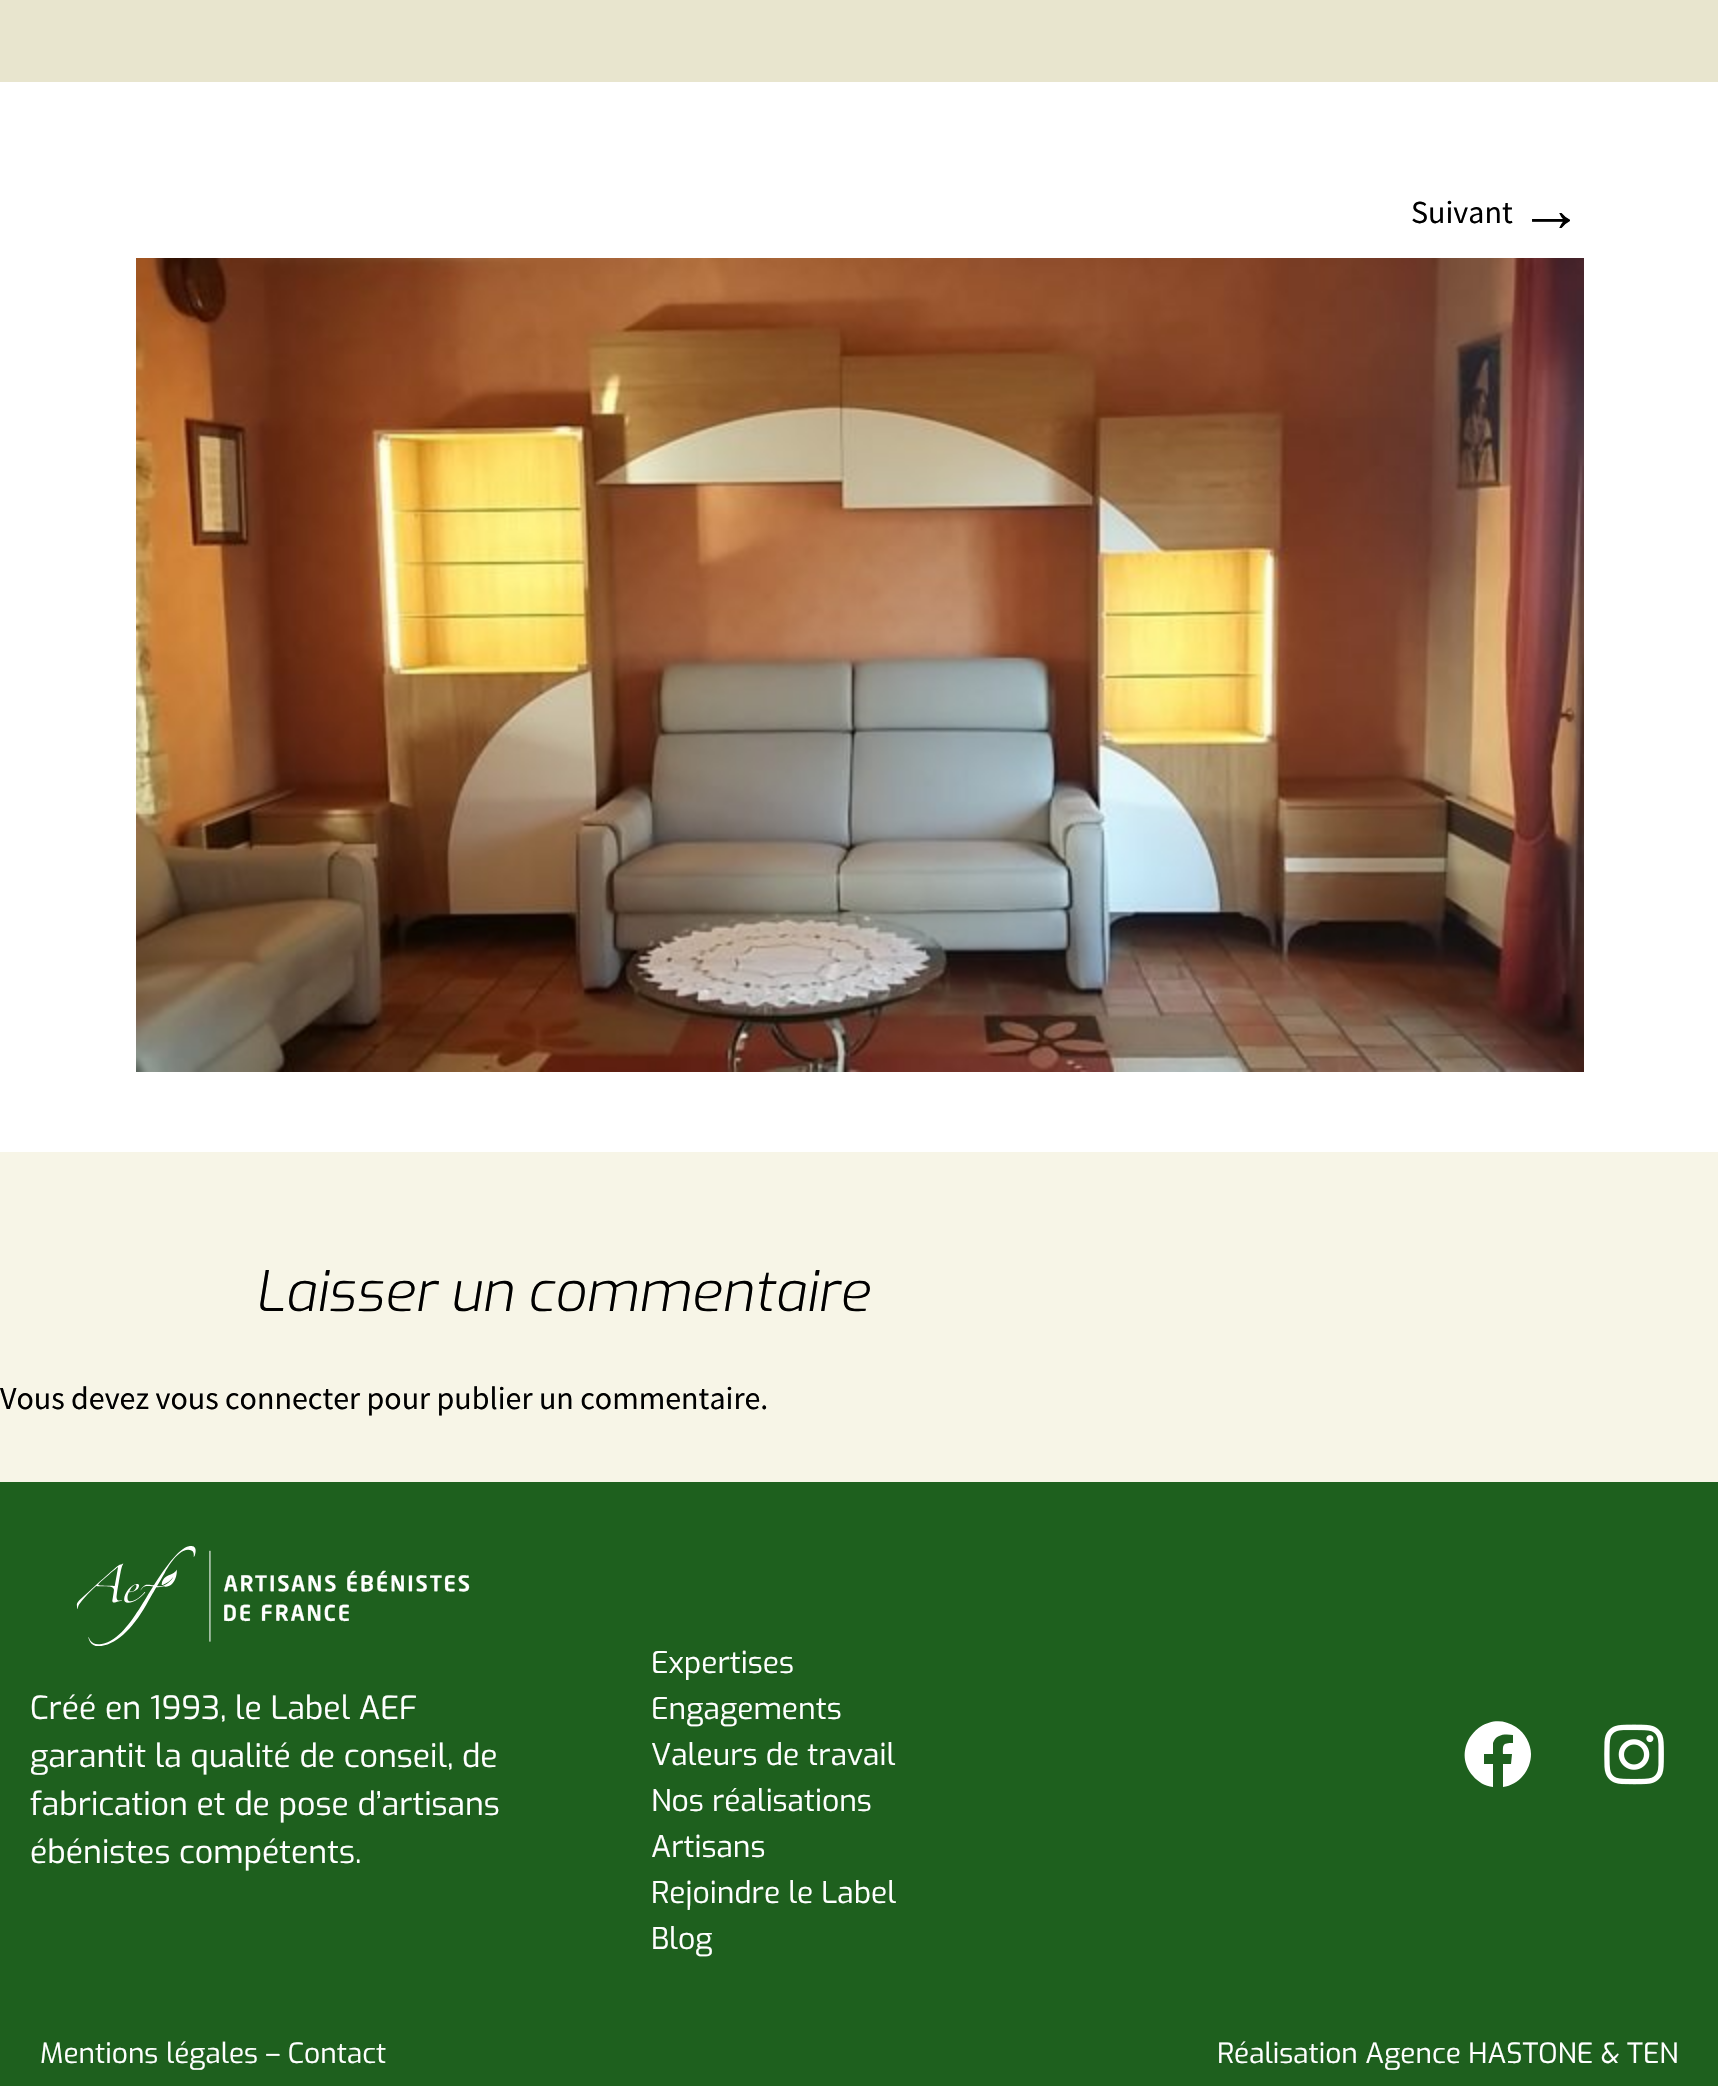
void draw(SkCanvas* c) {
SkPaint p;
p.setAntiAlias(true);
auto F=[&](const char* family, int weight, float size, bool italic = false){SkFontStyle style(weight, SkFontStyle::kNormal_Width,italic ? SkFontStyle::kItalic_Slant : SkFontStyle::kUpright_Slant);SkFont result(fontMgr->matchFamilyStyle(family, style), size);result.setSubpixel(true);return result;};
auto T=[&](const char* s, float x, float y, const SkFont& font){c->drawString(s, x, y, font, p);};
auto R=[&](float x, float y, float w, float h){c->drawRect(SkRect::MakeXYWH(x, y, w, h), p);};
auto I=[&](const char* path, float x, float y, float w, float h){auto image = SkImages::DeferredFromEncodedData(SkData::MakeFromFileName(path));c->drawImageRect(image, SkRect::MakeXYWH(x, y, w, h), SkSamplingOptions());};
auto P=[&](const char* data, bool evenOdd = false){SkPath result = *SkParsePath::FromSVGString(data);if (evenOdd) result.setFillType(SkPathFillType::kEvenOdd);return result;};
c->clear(0xffe8e5ce);
p.setColor(0xffffffff);
R(0,82,1718,1070);
auto f1 = F("Source Sans Pro",400,32);
p.setColor(0xff000000);
T("Suivant",1411,223,f1);
auto f2 = F("Liberation Sans",400,64);
T("→",1519,231,f2);
I("1.png",136,258,1448,814);
p.setColor(0xfff7f5e7);
R(0,1152,1718,330);
auto f3 = F("Exo",300,56,true);
p.setColor(0xff000000);
T("Laisser un commentaire",255,1311,f3);
T("Vous devez vous connecter pour publier un commentaire.",0,1409,f1);
p.setColor(0xff1e601e);
R(0,1482,1718,604);
I("2.png",76,1546,394,100);
auto f4 = F("Exo",400,32);
p.setColor(0xffffffff);
T("Créé en 1993, le Label AEF",30,1719,f4);
T("garantit la qualité de conseil, de",30,1767,f4);
T("fabrication et de pose d’artisans",30,1815,f4);
T("ébénistes compétents.",30,1863,f4);
auto f5 = F("Exo",400,30);
T("Expertises",651,1673,f5);
T("Engagements",651,1719,f5);
T("Valeurs de travail",651,1765,f5);
T("Nos réalisations",651,1811,f5);
T("Artisans",651,1857,f5);
T("Rejoindre le Label",651,1903,f5);
T("Blog",651,1949,f5);
c->drawPath(P("M1531 1754c0 16-12 31-28 33v-23h8l1-10h-9c0-9-1-11 10-11v-8c-8-1-17-1-20 8v11h-9v10h9v23c-8-1-15-5-20-11c-25-29 12-70 43-49c9 6 15 17 15 27z"),p);
I("3.png",1604,1724,60,61);
auto f6 = F("Exo",400,28);
T("Mentions légales – Contact",40,2063,f6);
T("Réalisation Agence HASTONE & TEN",1217,2063,f6);
}
